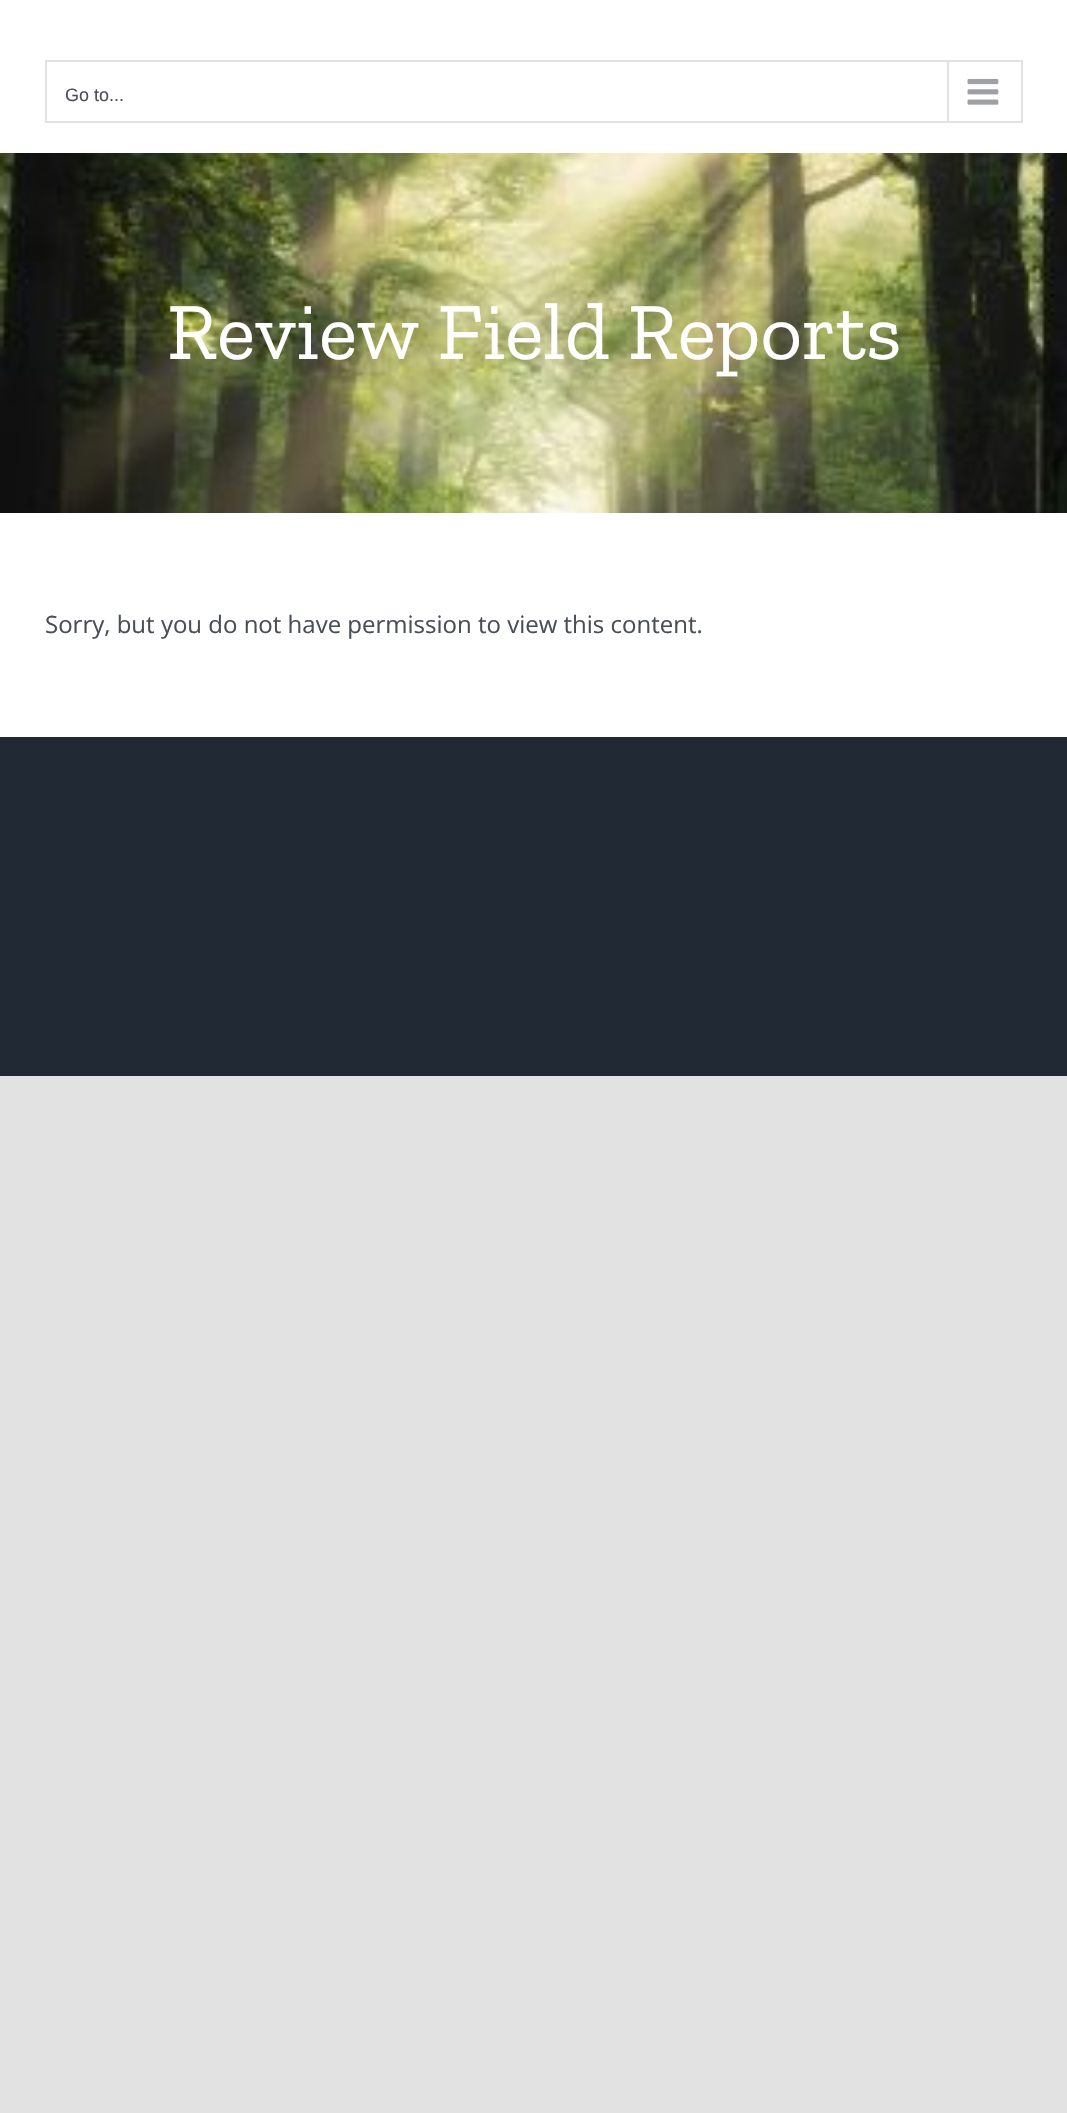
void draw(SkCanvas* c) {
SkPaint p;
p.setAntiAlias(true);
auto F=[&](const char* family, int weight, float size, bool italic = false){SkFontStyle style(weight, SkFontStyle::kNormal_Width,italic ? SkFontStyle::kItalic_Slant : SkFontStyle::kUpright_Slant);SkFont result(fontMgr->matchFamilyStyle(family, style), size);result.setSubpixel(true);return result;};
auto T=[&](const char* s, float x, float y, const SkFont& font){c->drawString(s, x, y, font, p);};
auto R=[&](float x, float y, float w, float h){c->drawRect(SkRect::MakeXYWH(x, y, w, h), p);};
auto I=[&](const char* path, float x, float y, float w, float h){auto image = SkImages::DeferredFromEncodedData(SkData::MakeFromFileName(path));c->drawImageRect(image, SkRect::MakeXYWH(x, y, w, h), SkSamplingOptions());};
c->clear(0xffe2e2e2);
p.setColor(0xffffffff);
R(0,0,1067,737);
p.setStroke(true);
p.setStrokeWidth(2);
p.setColor(0xffe2e2e2);
c->drawRect(SkRect::MakeXYWH(46,61,976,61),p);
auto f1 = F("Liberation Sans",400,18);
p.setStroke(false);
p.setColor(0xff4a4e57);
T("Go to...",65,101,f1);
p.setColor(0xffe2e2e2);
R(947,62,2,60);
I("1.png",967,78,32,27);
I("2.png",0,153,1067,360);
auto f2 = F("Zilla Slab",400,81);
p.setColor(0xffffffff);
T("Review Field Reports",167,359,f2);
auto f3 = F("Open Sans",400,24);
p.setColor(0xff4a4e57);
T("Sorry, but you do not have permission to view this content.",45,633,f3);
p.setColor(0xff212934);
R(0,737,1067,339);
}
